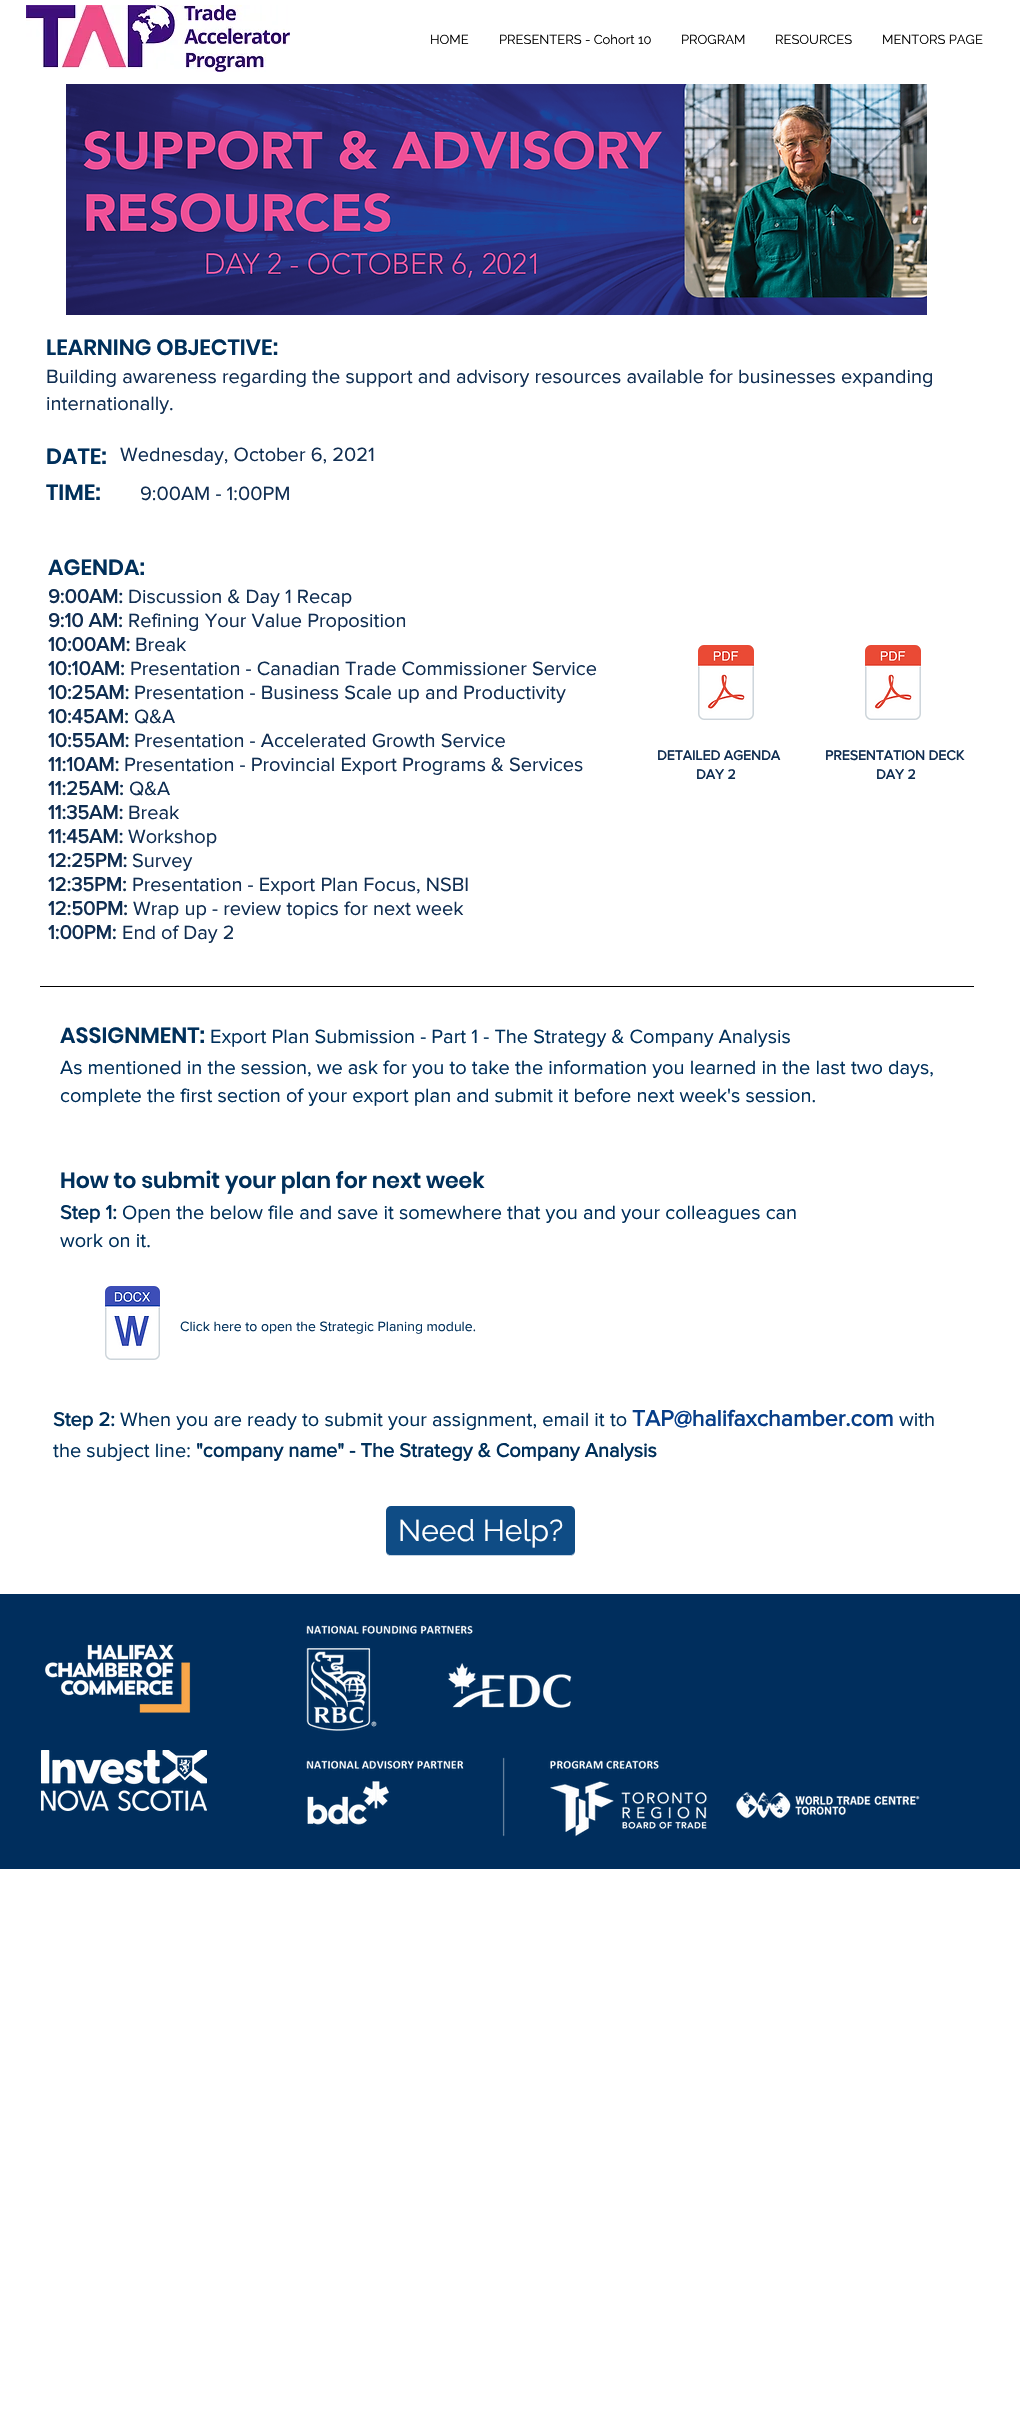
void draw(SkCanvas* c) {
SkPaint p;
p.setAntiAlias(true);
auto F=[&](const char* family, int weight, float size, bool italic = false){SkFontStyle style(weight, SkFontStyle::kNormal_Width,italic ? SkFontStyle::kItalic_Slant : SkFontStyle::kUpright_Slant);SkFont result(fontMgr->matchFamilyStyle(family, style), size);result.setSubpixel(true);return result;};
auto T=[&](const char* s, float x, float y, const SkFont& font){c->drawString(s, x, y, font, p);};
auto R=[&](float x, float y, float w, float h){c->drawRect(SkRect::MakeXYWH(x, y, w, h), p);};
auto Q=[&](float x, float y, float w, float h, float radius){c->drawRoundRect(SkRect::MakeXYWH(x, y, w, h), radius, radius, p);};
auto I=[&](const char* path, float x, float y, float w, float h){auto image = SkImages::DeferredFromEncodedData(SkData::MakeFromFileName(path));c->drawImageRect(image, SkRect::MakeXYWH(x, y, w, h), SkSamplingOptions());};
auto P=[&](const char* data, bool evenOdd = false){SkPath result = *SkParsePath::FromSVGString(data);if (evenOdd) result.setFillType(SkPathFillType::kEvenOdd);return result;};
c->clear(0xffffffff);
I("1.png",26,5,264,67);
auto f1 = F("Raleway",400,13);
p.setColor(0xff000000);
T("HOME",430,44,f1);
T("PRESENTERS - Cohort 10",499,44,f1);
T("PROGRAM",681,44,f1);
T("RESOURCES",775,44,f1);
T("MENTORS PAGE",882,44,f1);
I("2.png",66,84,861,231);
auto f2 = F("Poppins",600,22);
p.setColor(0xff00305b);
T("LEARNING OBJECTIVE:",46,355,f2);
auto f3 = F("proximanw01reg",400,20);
p.setColor(0xff102e52);
T("Building awareness regarding the support and advisory resources available for businesses expanding",46,383,f3);
T("internationally.",46,410,f3);
p.setColor(0xff00305b);
T("DATE:",46,464,f2);
p.setColor(0xff102e52);
T("Wednesday, October 6, 2021",120,461,f3);
p.setColor(0xff00305b);
T("TIME:",46,500,f2);
p.setColor(0xff102e52);
T("9:00AM - 1:00PM",140,500,f3);
p.setColor(0xff00305b);
T("AGENDA:",48,575,f2);
auto f4 = F("proximanw01reg",700,20);
p.setColor(0xff102e52);
T("9:00AM:",48,603,f4);
T("Discussion & Day 1 Recap",128,603,f3);
T("9:10 AM:",48,627,f4);
T("Refining Your Value Proposition",128,627,f3);
T("10:00AM:",48,651,f4);
T("Break",135,651,f3);
T("10:10AM:",48,675,f4);
T("Presentation - Canadian Trade Commissioner Service",130,675,f3);
T("10:25AM:",48,699,f4);
T("Presentation - Business Scale up and Productivity",134,699,f3);
T("10:45AM:",48,723,f4);
T("Q&A",134,723,f3);
T("10:55AM:",48,747,f4);
T("Presentation - Accelerated Growth Service",134,747,f3);
T("11:10AM:",48,771,f4);
T("Presentation - Provincial Export Programs & Services",124,771,f3);
T("11:25AM:",48,795,f4);
T("Q&A",129,795,f3);
T("11:35AM:",48,819,f4);
T("Break",128,819,f3);
T("11:45AM:",48,843,f4);
T("Workshop",128,843,f3);
T("12:25PM:",48,867,f4);
T("Survey",132,867,f3);
T("12:35PM:",48,891,f4);
T("Presentation - Export Plan Focus, NSBI",132,891,f3);
T("12:50PM:",48,915,f4);
T("Wrap up - review topics for next week",133,915,f3);
T("1:00PM:",48,939,f4);
T("End of Day 2",122,939,f3);
I("3.png",698,645,56,75);
I("3.png",865,645,56,75);
auto f5 = F("proximanw01reg",700,14);
T("DETAILED AGENDA",657,760,f5);
T("DAY 2",696,779,f5);
T("PRESENTATION DECK",825,760,f5);
T("DAY 2",876,779,f5);
p.setColor(0xff000000);
R(40,986,934,1);
p.setColor(0xff00305b);
T("ASSIGNMENT:",60,1043,f2);
T("Export Plan Submission - Part 1 - The Strategy & Company Analysis",210,1043,f3);
T("As mentioned in the session, we ask for you to take the information you learned in the last two days,",60,1074,f3);
T("complete the first section of your export plan and submit it before next week's session.",60,1102,f3);
T("How to submit your plan for next week",60,1188,f2);
T("Step 1:",60,1219,f4);
T("Open the below file and save it somewhere that you and your colleagues can",122,1219,f3);
T("work on it.",60,1247,f3);
I("4.png",105,1286,55,74);
auto f6 = F("proximanw01reg",400,14);
T("Click here to open the Strategic Planing module.",180,1331,f6);
T("Step 2:",53,1426,f4);
T("When you are ready to submit your assignment, email it to",120,1426,f3);
auto f7 = F("proximanw01reg",700,23);
p.setColor(0xff073e89);
T("TAP@halifaxchamber.com",632,1426,f7);
p.setColor(0xff00305b);
T("with",899,1426,f3);
T("the subject line:",53,1457,f3);
T("\"company name\" - The Strategy & Company Analysis",196,1457,f4);
p.setColor(0xff0f4c85);
Q(386,1506,189,50,5);
p.setColor(0xbfffffff);
c->drawPath(P("M386 1550c0 3 1 5 4 6h181c3-1 4-3 4-6c0 3-2 5-5 5h-179c-3 0-5-2-5-5z"),p);
auto f8 = F("Raleway",400,30);
p.setColor(0xffffffff);
T("Need Help?",398,1541,f8);
p.setColor(0xff002e5d);
R(0,1594,1020,275);
I("5.png",45,1644,146,69);
I("6.png",306,1625,614,212);
I("7.png",41,1750,166,61);
}
